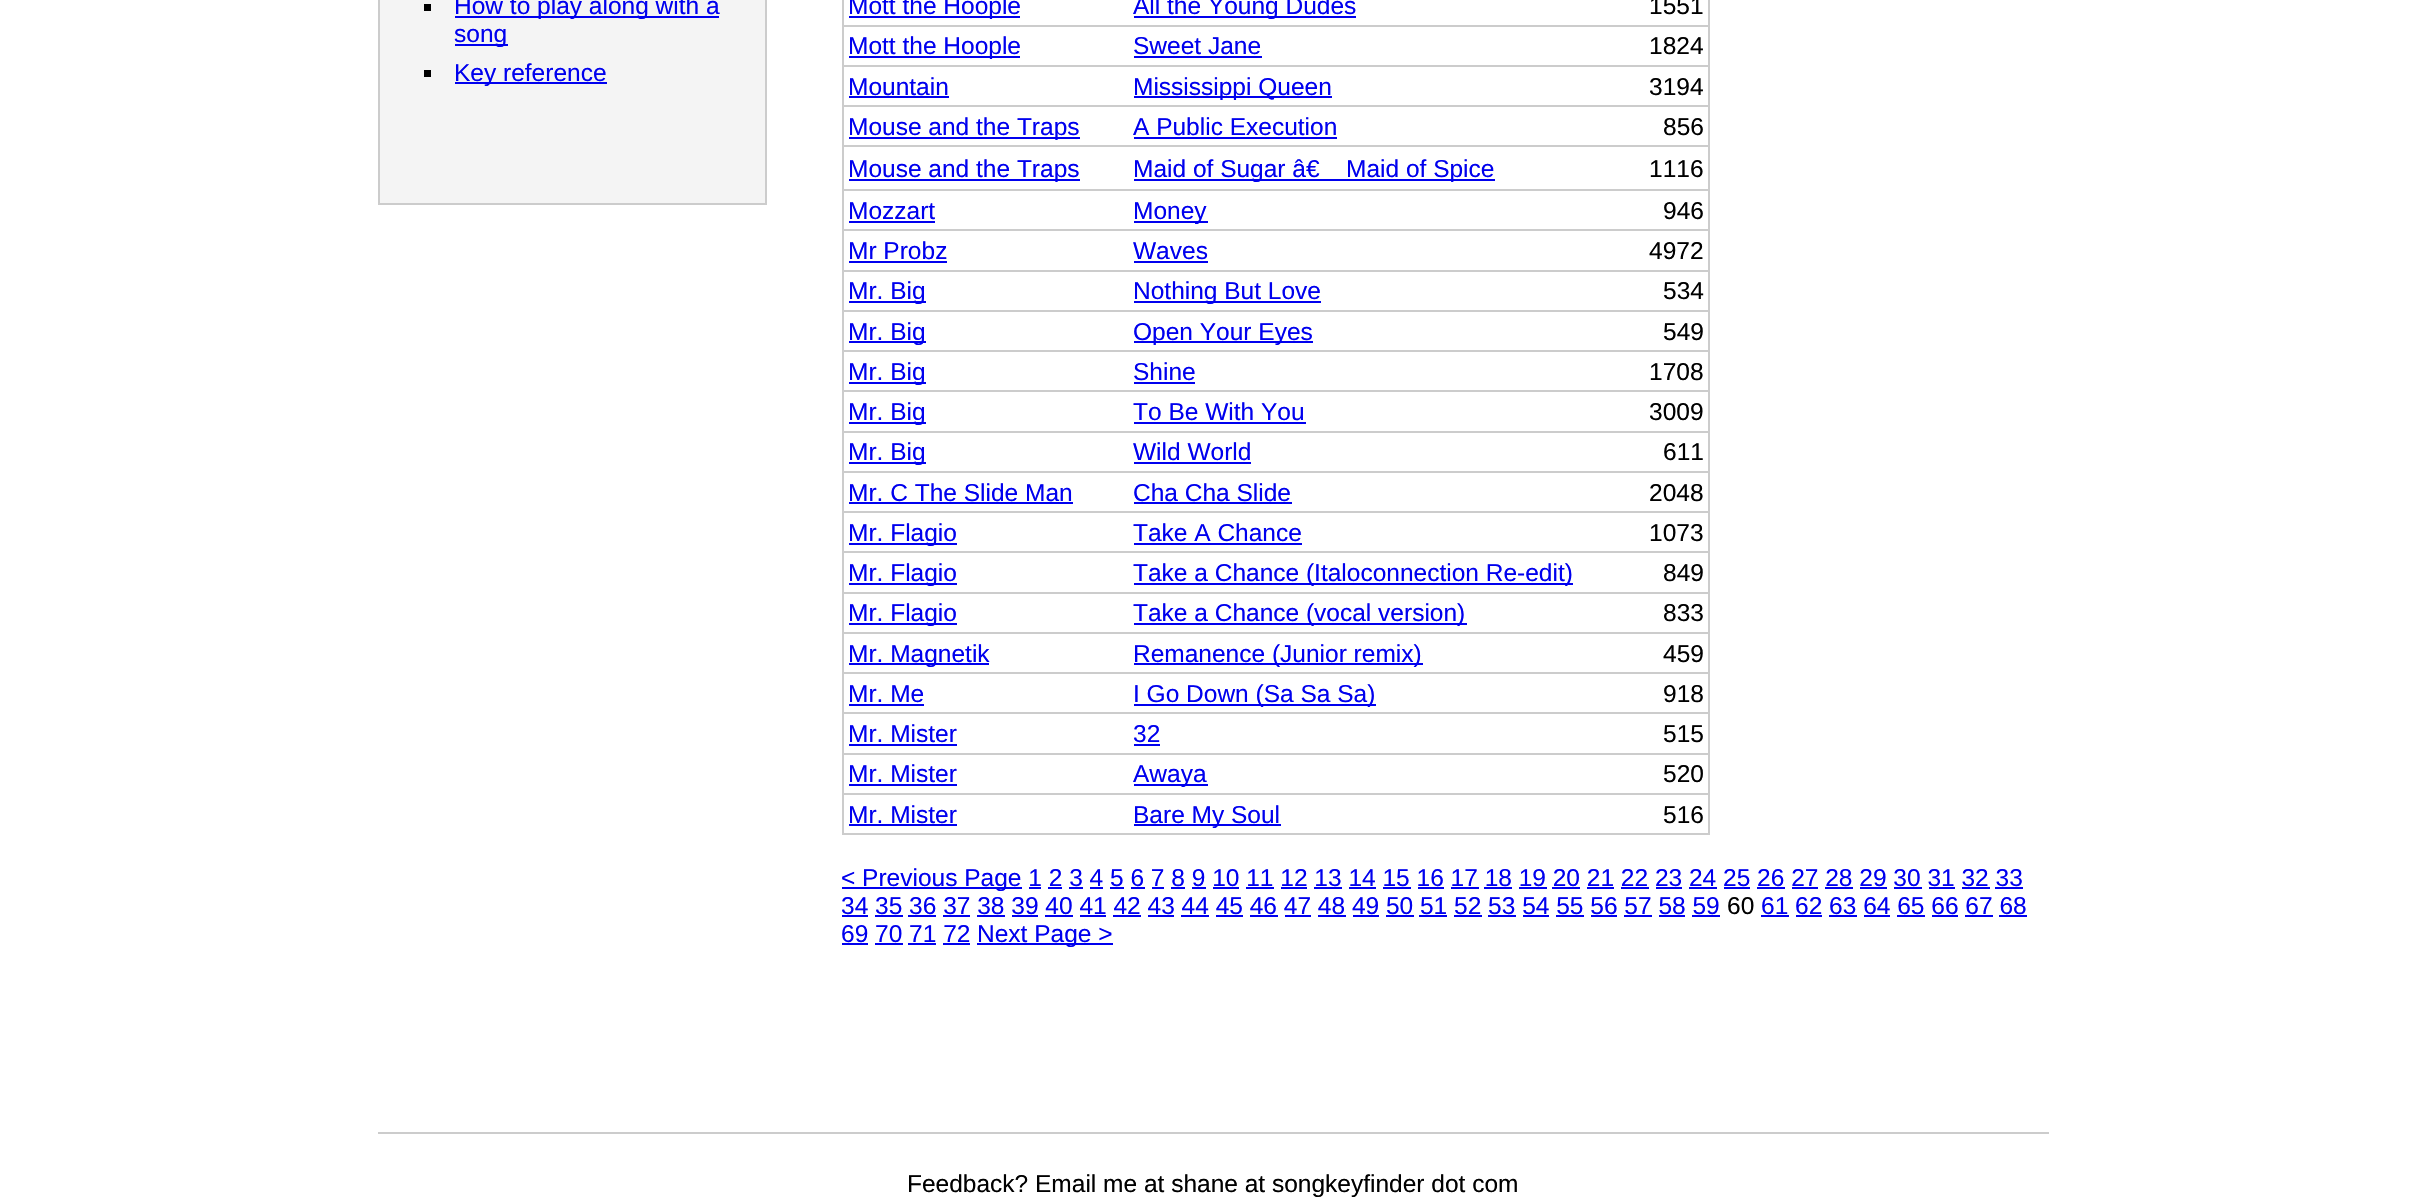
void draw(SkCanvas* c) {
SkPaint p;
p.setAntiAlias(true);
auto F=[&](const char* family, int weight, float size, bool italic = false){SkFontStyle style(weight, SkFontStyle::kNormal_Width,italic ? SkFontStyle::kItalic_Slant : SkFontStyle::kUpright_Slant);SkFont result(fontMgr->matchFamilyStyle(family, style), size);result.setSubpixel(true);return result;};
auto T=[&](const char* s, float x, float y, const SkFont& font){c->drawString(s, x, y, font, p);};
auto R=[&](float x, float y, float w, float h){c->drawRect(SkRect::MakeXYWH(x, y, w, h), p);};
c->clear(0xffffffff);
p.setColor(0xfff4f4f4);
c->drawRect(SkRect::MakeXYWH(379,-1,387,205),p);
p.setStroke(true);
p.setStrokeWidth(2);
p.setColor(0xffcccccc);
c->drawRect(SkRect::MakeXYWH(379,-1,387,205),p);
p.setStroke(false);
p.setColor(0xff000000);
R(424,4,7,7);
p.setColor(0xff0000ee);
R(455,16,264,2);
auto f1 = F("Liberation Sans",400,24.5);
T("How to play along with a",454,14,f1);
R(455,44,53,2);
T("song",454,42,f1);
p.setColor(0xff000000);
R(424,70,7,7);
p.setColor(0xff0000ee);
R(455,82,152,2);
T("Key reference",454,81,f1);
p.setColor(0xffcccccc);
R(1708,0,2,835);
R(842,833,868,2);
R(842,0,2,835);
p.setColor(0xff0000ee);
R(849,16,171,2);
T("Mott the Hoople",848,14,f1);
R(1134,16,222,2);
T("All the Young Dudes",1133,14,f1);
p.setColor(0xffcccccc);
R(842,25,868,2);
p.setColor(0xff000000);
T("1551",1649,14,f1);
p.setColor(0xff0000ee);
R(849,56,171,2);
T("Mott the Hoople",848,54,f1);
T("Sweet Jane",1133,54,f1);
R(1134,56,128,2);
p.setColor(0xffcccccc);
R(842,65,868,2);
p.setColor(0xff000000);
T("1824",1649,54,f1);
p.setColor(0xff0000ee);
T("Mountain",848,95,f1);
R(849,96,100,2);
R(1134,96,198,2);
T("Mississippi Queen",1133,95,f1);
p.setColor(0xffcccccc);
R(842,105,868,2);
p.setColor(0xff000000);
T("3194",1649,95,f1);
p.setColor(0xff0000ee);
R(849,137,231,2);
T("Mouse and the Traps",848,135,f1);
T("A Public Execution",1133,135,f1);
R(1134,137,203,2);
p.setColor(0xffcccccc);
R(842,145,868,2);
p.setColor(0xff000000);
T("856",1663,135,f1);
p.setColor(0xff0000ee);
R(849,179,231,2);
T("Mouse and the Traps",848,177,f1);
R(1134,179,361,2);
T("Maid of Sugar â€",1133,177,f1);
T("Maid of Spice",1346,177,f1);
p.setColor(0xffcccccc);
R(842,189,868,2);
p.setColor(0xff000000);
T("1116",1649,177,f1);
p.setColor(0xff0000ee);
T("Mozzart",848,219,f1);
R(849,221,86,2);
R(1134,221,74,2);
T("Money",1133,219,f1);
p.setColor(0xffcccccc);
R(842,229,868,2);
p.setColor(0xff000000);
T("946",1663,219,f1);
p.setColor(0xff0000ee);
T("Mr Probz",848,259,f1);
R(849,261,98,2);
T("Waves",1133,259,f1);
R(1134,261,74,2);
p.setColor(0xffcccccc);
R(842,270,868,2);
p.setColor(0xff000000);
T("4972",1649,259,f1);
p.setColor(0xff0000ee);
R(849,301,77,2);
T("Mr. Big",848,299,f1);
R(1134,301,187,2);
T("Nothing But Love",1133,299,f1);
p.setColor(0xffcccccc);
R(842,310,868,2);
p.setColor(0xff000000);
T("534",1663,299,f1);
p.setColor(0xff0000ee);
R(849,341,77,2);
T("Mr. Big",848,340,f1);
R(1134,341,179,2);
T("Open Your Eyes",1133,340,f1);
p.setColor(0xffcccccc);
R(842,350,868,2);
p.setColor(0xff000000);
T("549",1663,340,f1);
p.setColor(0xff0000ee);
R(849,382,77,2);
T("Mr. Big",848,380,f1);
T("Shine",1133,380,f1);
R(1134,382,61,2);
p.setColor(0xffcccccc);
R(842,390,868,2);
p.setColor(0xff000000);
T("1708",1649,380,f1);
p.setColor(0xff0000ee);
R(849,422,77,2);
T("Mr. Big",848,420,f1);
T("To Be With You",1133,420,f1);
R(1134,422,172,2);
p.setColor(0xffcccccc);
R(842,431,868,2);
p.setColor(0xff000000);
T("3009",1649,420,f1);
p.setColor(0xff0000ee);
R(849,462,77,2);
T("Mr. Big",848,460,f1);
T("Wild World",1133,460,f1);
R(1134,462,117,2);
p.setColor(0xffcccccc);
R(842,471,868,2);
p.setColor(0xff000000);
T("611",1663,460,f1);
p.setColor(0xff0000ee);
T("Mr. C The Slide Man",848,501,f1);
R(849,502,224,2);
T("Cha Cha Slide",1133,501,f1);
R(1134,502,158,2);
p.setColor(0xffcccccc);
R(842,511,868,2);
p.setColor(0xff000000);
T("2048",1649,501,f1);
p.setColor(0xff0000ee);
R(849,543,108,2);
T("Mr. Flagio",848,541,f1);
T("Take A Chance",1133,541,f1);
R(1134,543,168,2);
p.setColor(0xffcccccc);
R(842,551,868,2);
p.setColor(0xff000000);
T("1073",1649,541,f1);
p.setColor(0xff0000ee);
R(849,583,108,2);
T("Mr. Flagio",848,581,f1);
R(1134,583,439,2);
T("Take a Chance (Italoconnection Re-edit)",1133,581,f1);
p.setColor(0xffcccccc);
R(842,592,868,2);
p.setColor(0xff000000);
T("849",1663,581,f1);
p.setColor(0xff0000ee);
R(849,623,108,2);
T("Mr. Flagio",848,621,f1);
R(1134,623,333,2);
T("Take a Chance (vocal version)",1133,621,f1);
p.setColor(0xffcccccc);
R(842,632,868,2);
p.setColor(0xff000000);
T("833",1663,621,f1);
p.setColor(0xff0000ee);
R(849,663,140,2);
T("Mr. Magnetik",848,662,f1);
R(1134,663,289,2);
T("Remanence (Junior remix)",1133,662,f1);
p.setColor(0xffcccccc);
R(842,672,868,2);
p.setColor(0xff000000);
T("459",1663,662,f1);
p.setColor(0xff0000ee);
T("Mr. Me",848,702,f1);
R(849,704,75,2);
R(1134,704,242,2);
T("I Go Down (Sa Sa Sa)",1133,702,f1);
p.setColor(0xffcccccc);
R(842,712,868,2);
p.setColor(0xff000000);
T("918",1663,702,f1);
p.setColor(0xff0000ee);
T("Mr. Mister",848,742,f1);
R(849,744,108,2);
T("32",1133,742,f1);
R(1134,744,26,2);
p.setColor(0xffcccccc);
R(842,753,868,2);
p.setColor(0xff000000);
T("515",1663,742,f1);
p.setColor(0xff0000ee);
T("Mr. Mister",848,782,f1);
R(849,784,108,2);
R(1134,784,74,2);
T("Awaya",1133,782,f1);
p.setColor(0xffcccccc);
R(842,793,868,2);
p.setColor(0xff000000);
T("520",1663,782,f1);
p.setColor(0xff0000ee);
T("Mr. Mister",848,823,f1);
R(849,824,108,2);
R(1134,824,147,2);
T("Bare My Soul",1133,823,f1);
p.setColor(0xff000000);
T("516",1663,823,f1);
p.setColor(0xff0000ee);
R(842,887,180,2);
T("< Previous Page 1 2 3 4 5 6 7 8 9 10 11 12 13 14 15 16 17 18 19 20 21 22 23 24 25 26 27 28 29 30 31 32 33",841,886,f1);
R(1029,887,12,2);
R(1048,887,14,2);
R(1069,887,14,2);
R(1090,887,13,2);
R(1110,887,14,2);
R(1131,887,14,2);
R(1152,887,12,2);
R(1171,887,14,2);
R(1192,887,14,2);
R(1213,887,26,2);
R(1246,887,28,2);
R(1281,887,26,2);
R(1314,887,28,2);
R(1349,887,27,2);
R(1383,887,28,2);
R(1418,887,26,2);
R(1451,887,28,2);
R(1484,887,28,2);
R(1519,887,28,2);
R(1552,887,28,2);
R(1587,887,27,2);
R(1621,887,28,2);
R(1656,887,26,2);
R(1689,887,28,2);
R(1724,887,26,2);
R(1757,887,28,2);
R(1792,887,26,2);
R(1825,887,28,2);
R(1860,887,27,2);
R(1894,887,28,2);
R(1929,887,26,2);
R(1962,887,28,2);
R(1995,887,28,2);
T("34 35 36 37 38 39 40 41 42 43 44 45 46 47 48 49 50 51 52 53 54 55 56 57 58 59",841,914,f1);
R(842,915,26,2);
p.setColor(0xff000000);
T("60",1727,914,f1);
p.setColor(0xff0000ee);
T("61 62 63 64 65 66 67 68",1761,914,f1);
R(1761,915,28,2);
R(875,915,28,2);
R(908,915,28,2);
R(943,915,27,2);
R(977,915,28,2);
R(1012,915,26,2);
R(1045,915,28,2);
R(1080,915,26,2);
R(1113,915,28,2);
R(1148,915,26,2);
R(1181,915,28,2);
R(1216,915,27,2);
R(1250,915,28,2);
R(1285,915,26,2);
R(1318,915,28,2);
R(1353,915,26,2);
R(1386,915,28,2);
R(1419,915,28,2);
R(1454,915,28,2);
R(1488,915,28,2);
R(1523,915,26,2);
R(1556,915,28,2);
R(1591,915,26,2);
R(1624,915,28,2);
R(1659,915,26,2);
R(1692,915,28,2);
R(1796,915,26,2);
R(1829,915,28,2);
R(1864,915,26,2);
R(1897,915,28,2);
R(1932,915,26,2);
R(1965,915,28,2);
R(1999,915,28,2);
T("69 70 71 72",841,942,f1);
R(842,943,26,2);
R(977,943,136,2);
T("Next Page >",977,942,f1);
R(875,943,28,2);
R(908,943,28,2);
R(943,943,27,2);
p.setColor(0xffcccccc);
R(378,1132,1671,2);
p.setColor(0xff000000);
T("Feedback? Email me at shane at songkeyfinder dot com",907,1192,f1);
}
